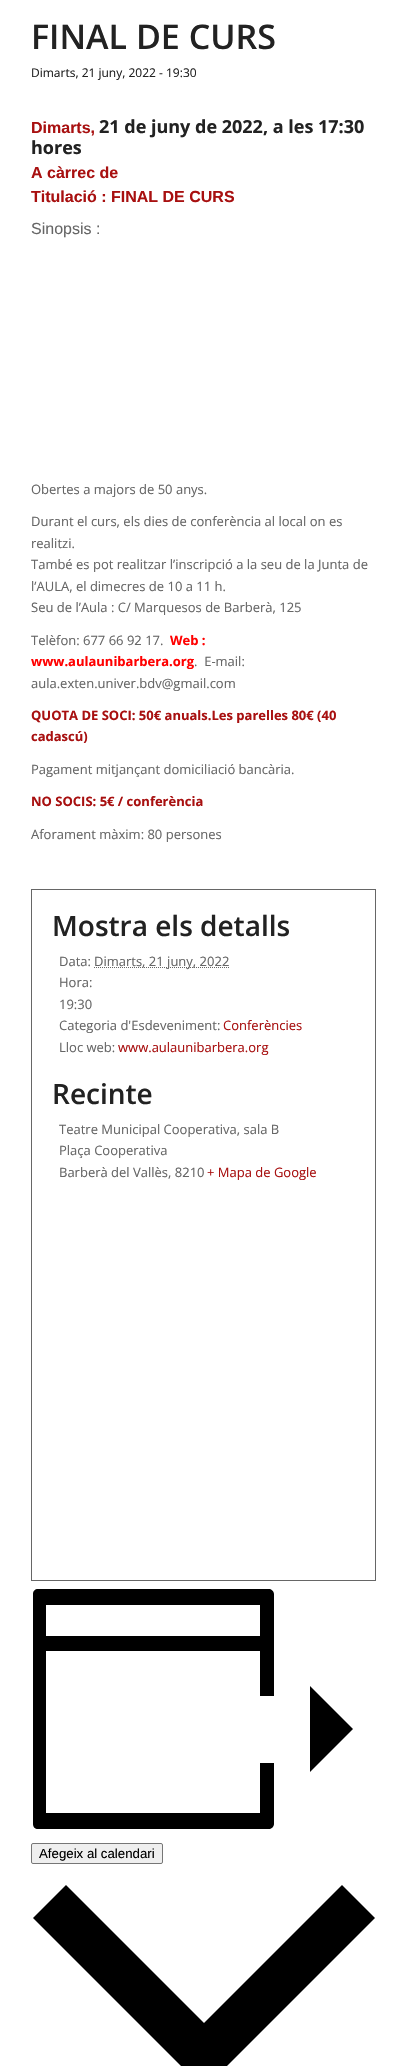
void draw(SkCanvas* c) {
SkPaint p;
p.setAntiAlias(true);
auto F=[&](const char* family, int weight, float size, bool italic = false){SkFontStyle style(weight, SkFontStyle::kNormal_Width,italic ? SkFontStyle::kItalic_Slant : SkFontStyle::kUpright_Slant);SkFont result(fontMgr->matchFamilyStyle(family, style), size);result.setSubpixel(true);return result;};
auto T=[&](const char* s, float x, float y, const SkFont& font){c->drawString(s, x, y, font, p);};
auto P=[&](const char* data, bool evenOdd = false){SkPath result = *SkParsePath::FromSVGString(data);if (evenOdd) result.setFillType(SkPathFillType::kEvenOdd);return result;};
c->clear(0xffffffff);
auto f1 = F("Open Sans",600,34);
p.setColor(0xff222222);
T("FINAL DE CURS",31,49,f1);
auto f2 = F("Open Sans",400,12);
T("Dimarts, 21 juny, 2022 - 19:30",31,77,f2);
auto f3 = F("Liberation Sans",700,16);
p.setColor(0xffa81010);
T("Dimarts,",31,133,f3);
auto f4 = F("Open Sans",700,18);
p.setColor(0xff222222);
T("21 de juny de 2022, a les 17:30",99,133,f4);
T("hores",31,154,f4);
p.setColor(0xffa81010);
T("A càrrec de",31,178,f3);
T("Titulació : FINAL DE CURS",31,202,f3);
auto f5 = F("Liberation Sans",400,16);
p.setColor(0xff666666);
T("Sinopsis :",31,234,f5);
auto f6 = F("Open Sans",400,13);
T("Obertes a majors de 50 anys.",31,494,f6);
T("Durant el curs, els dies de conferència al local on es",31,526,f6);
T("realitzi.",31,548,f6);
T("També es pot realitzar l’inscripció a la seu de la Junta de",31,569,f6);
T("l’AULA, el dimecres de 10 a 11 h.",31,591,f6);
T("Seu de l’Aula : C/ Marquesos de Barberà, 125",31,612,f6);
T("Telèfon: 677 66 92 17.",31,645,f6);
auto f7 = F("Open Sans",700,13);
p.setColor(0xffff0000);
T("Web :",170,645,f7);
T("www.aulaunibarbera.org",31,666,f7);
p.setColor(0xff666666);
T(".  E-mail:",194,666,f6);
T("aula.exten.univer.bdv@gmail.com",31,688,f6);
p.setColor(0xffa81010);
T("QUOTA DE SOCI: 50€ anuals.Les parelles 80€ (40",31,720,f7);
T("cadascú)",31,741,f7);
p.setColor(0xff666666);
T("Pagament mitjançant domiciliació bancària.",31,774,f6);
p.setColor(0xffa81010);
T("NO SOCIS: 5€ / conferència",31,806,f7);
p.setColor(0xff666666);
T("Aforament màxim: 80 persones",31,839,f6);
p.setStroke(true);
p.setStrokeWidth(1);
c->drawRect(SkRect::MakeXYWH(31.5,889.5,344,691),p);
auto f8 = F("Open Sans",600,28);
p.setStroke(false);
p.setColor(0xff222222);
T("Mostra els detalls",52,936,f8);
p.setColor(0xff666666);
T("Data:",59,966,f6);
p.setStroke(true);
p.setPathEffect(SkDashPathEffect::Make({{1,1}}, 0));
c->drawPath(P("M94 967.5h135"),p);
p.setPathEffect(nullptr);
p.setStroke(false);
T("Dimarts, 21 juny, 2022",94,966,f6);
T("Hora:",59,987,f6);
T("19:30",59,1009,f6);
T("Categoria d'Esdeveniment:",59,1030,f6);
p.setColor(0xffa81010);
T("Conferències",223,1030,f6);
p.setColor(0xff666666);
T("Lloc web:",59,1052,f6);
p.setColor(0xffa81010);
T("www.aulaunibarbera.org",118,1052,f6);
p.setColor(0xff222222);
T("Recinte",52,1104,f8);
p.setColor(0xff666666);
T("Teatre Municipal Cooperativa, sala B",59,1134,f6);
T("Plaça Cooperativa",59,1155,f6);
T("Barberà del Vallès, 8210",59,1177,f6);
p.setColor(0xffa81010);
T("+ Mapa de Google",207,1177,f6);
p.setColor(0xff000000);
c->drawPath(P("M33 1594v230c0 3 2 5 5 5h231c2 0 5-2 5-5v-230c0-3-3-5-5-5h-231c-3 0-5 2-5 5zm241 102h-14v-45h-214v162h214v-50h14zm-228-91h214v31h-214z",true),p);
c->drawPath(P("M339 1729h-183m154-43l43 43l-43 43"),p);
p.setColor(0xffefefef);
c->drawRoundRect(SkRect::MakeXYWH(31.5,1843.5,131,20),1.5,1.5,p);
p.setStroke(true);
p.setColor(0xff767676);
c->drawRoundRect(SkRect::MakeXYWH(31.5,1843.5,131,20),1.5,1.5,p);
auto f9 = F("Liberation Sans",400,13.25);
p.setStroke(false);
p.setColor(0xff000000);
T("Afegeix al calendari",39,1858,f9);
c->drawPath(P("M66 1885l138 138l138-138l33 33l-171 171l-171-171z",true),p);
}
